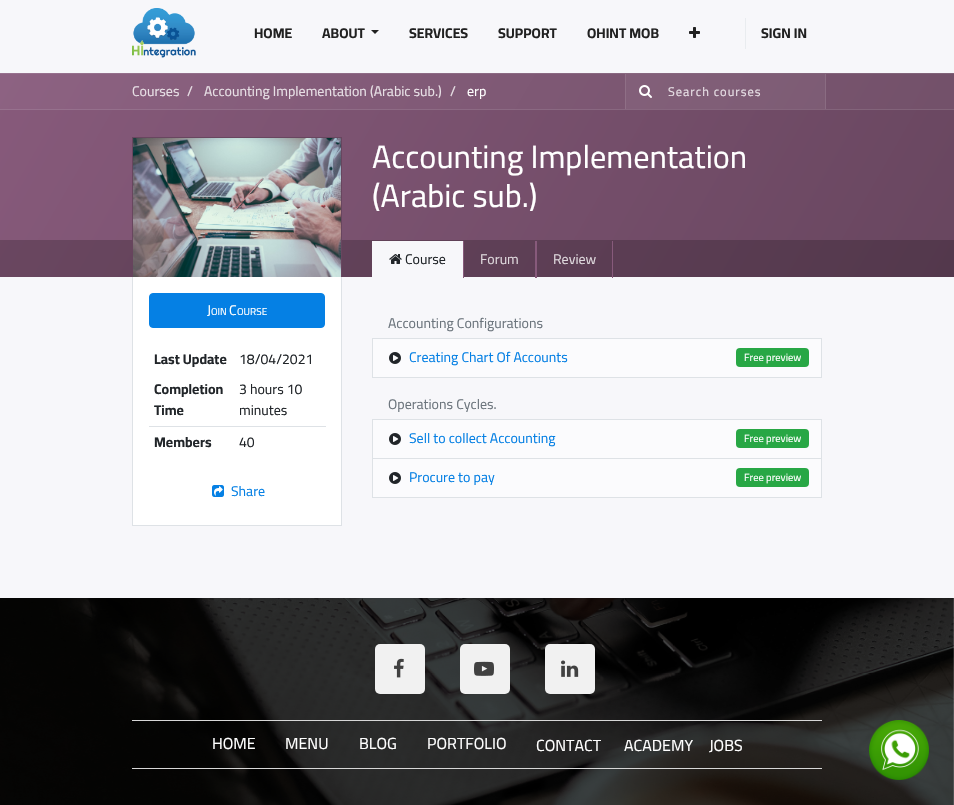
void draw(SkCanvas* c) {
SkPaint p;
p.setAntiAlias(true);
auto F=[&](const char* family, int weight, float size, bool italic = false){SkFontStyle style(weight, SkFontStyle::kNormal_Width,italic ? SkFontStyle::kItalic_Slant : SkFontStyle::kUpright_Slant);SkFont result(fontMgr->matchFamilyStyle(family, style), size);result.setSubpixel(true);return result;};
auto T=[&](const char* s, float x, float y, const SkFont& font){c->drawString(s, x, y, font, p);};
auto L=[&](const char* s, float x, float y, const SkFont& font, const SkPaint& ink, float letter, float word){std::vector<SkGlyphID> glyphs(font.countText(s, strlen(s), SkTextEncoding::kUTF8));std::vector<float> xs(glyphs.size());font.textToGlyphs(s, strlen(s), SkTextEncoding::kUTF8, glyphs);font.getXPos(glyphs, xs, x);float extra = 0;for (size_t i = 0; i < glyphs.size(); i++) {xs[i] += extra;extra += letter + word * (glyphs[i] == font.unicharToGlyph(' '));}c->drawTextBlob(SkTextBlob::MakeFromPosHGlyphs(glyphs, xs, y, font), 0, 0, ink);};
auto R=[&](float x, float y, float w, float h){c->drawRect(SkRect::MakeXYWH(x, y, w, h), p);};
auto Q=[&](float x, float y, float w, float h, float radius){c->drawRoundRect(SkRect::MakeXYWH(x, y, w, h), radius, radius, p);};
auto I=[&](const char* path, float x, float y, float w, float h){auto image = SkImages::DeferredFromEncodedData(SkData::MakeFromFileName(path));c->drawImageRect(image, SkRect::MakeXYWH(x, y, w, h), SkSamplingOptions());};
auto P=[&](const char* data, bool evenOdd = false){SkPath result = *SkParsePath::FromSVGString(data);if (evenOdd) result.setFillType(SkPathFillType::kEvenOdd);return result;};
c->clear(0xfff7f7fa);
I("1.png",132,8,64,50);
auto f1 = F("Cairo",700,14);
p.setColor(0xff212121);
T("HOME",254,38,f1);
T("ABOUT",322,38,f1);
c->drawPath(P("M371 30h8l-4 4z"),p);
T("SERVICES",409,38,f1);
T("SUPPORT",498,38,f1);
T("OHINT MOB",587,38,f1);
I("2.png",689,27,11,11);
p.setColor(0xffe9ecef);
R(745,18,1,31);
p.setColor(0xff212121);
T("SIGN IN",761,38,f1);
{
const SkColor colors[] = {0xff875a7b,0xff68465f};
const float stops[] = {0,1};
const SkPoint ends[] = {{75,-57}, {879,407}};
p.setShader(SkGradientShader::MakeLinear(ends, colors, stops, 2, SkTileMode::kClamp));
p.setAlpha(255);
}
R(0,110,954,130);
{
const SkColor colors[] = {0xff8d6282,0xff704f67};
const float stops[] = {0,1};
const SkPoint ends[] = {{75,-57}, {879,407}};
p.setShader(SkGradientShader::MakeLinear(ends, colors, stops, 2, SkTileMode::kClamp));
p.setAlpha(255);
}
R(0,74,954,35);
{
const SkColor colors[] = {0xff936a88,0xff77586f};
const float stops[] = {0,1};
const SkPoint ends[] = {{75,-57}, {879,407}};
p.setShader(SkGradientShader::MakeLinear(ends, colors, stops, 2, SkTileMode::kClamp));
p.setAlpha(255);
}
R(626,74,199,35);
{
const SkColor colors[] = {0xff98728f,0xff7e6176};
const float stops[] = {0,1};
const SkPoint ends[] = {{75,-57}, {879,407}};
p.setShader(SkGradientShader::MakeLinear(ends, colors, stops, 2, SkTileMode::kClamp));
p.setAlpha(255);
}
R(0,109,954,1);
R(0,73,954,1);
{
const SkColor colors[] = {0xff6c4862,0xff53384c};
const float stops[] = {0,1};
const SkPoint ends[] = {{75,-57}, {879,407}};
p.setShader(SkGradientShader::MakeLinear(ends, colors, stops, 2, SkTileMode::kClamp));
p.setAlpha(255);
}
R(0,240,954,37);
auto f2 = F("Cairo",400,14);
p.setShader(nullptr);
p.setColor(0xffe7dfe5);
T("Courses",132,96,f2);
T("/",187,96,f2);
T("Accounting Implementation (Arabic sub.)",204,96,f2);
T("/",450,96,f2);
p.setColor(0xffffffff);
T("erp",467,96,f2);
p.setColor(0xff8a6c82);
R(825,74,1,35);
p.setColor(0xff8f6f86);
R(625,74,1,35);
I("3.png",639,85,13,13);
auto f3 = F("Cairo",400,12.5);
p.setColor(0xffe7dfe5);
L("Search courses",668,96,f3,p,1,0);
p.setColor(0xff68465f);
R(132,137,210,1);
R(341,137,1,140);
R(132,137,1,103);
I("4.png",133,138,208,139);
auto f4 = F("Cairo",400,32.25);
p.setColor(0xffffffff);
T("Accounting Implementation",372,168,f4);
T("(Arabic sub.)",372,207,f4);
R(133,277,208,248);
p.setColor(0xffdee2e6);
R(341,277,1,249);
R(132,525,210,1);
R(132,277,1,249);
p.setColor(0xff0580e4);
c->drawRoundRect(SkRect::MakeXYWH(149.5,293.5,175,34),3.5,3.5,p);
p.setStroke(true);
p.setStrokeWidth(1);
c->drawRoundRect(SkRect::MakeXYWH(149.5,293.5,175,34),3.5,3.5,p);
p.setStroke(false);
p.setColor(0xffffffff);
T("J",207,315,f2);
auto f5 = F("Cairo",400,10);
T("OIN",211,315,f5);
T("C",229,315,f2);
T("OURSE",237,315,f5);
p.setColor(0xff212529);
T("Last Update",154,364,f1);
T("18/04/2021",239,364,f2);
T("Completion",154,394,f1);
T("Time",154,415,f1);
T("3 hours 10",239,394,f2);
T("minutes",239,415,f2);
T("Members",154,447,f1);
p.setColor(0xffdee2e6);
R(149,426,177,1);
p.setColor(0xff212529);
T("40",239,447,f2);
I("5.png",212,485,12,12);
p.setColor(0xff0580e4);
T("Share",231,496,f2);
p.setColor(0xfff7f7fa);
R(373,241,89,36);
R(462,241,1,37);
R(372,241,1,37);
I("6.png",389,254,13,10);
p.setColor(0xff212529);
T("Course",405,264,f2);
p.setColor(0xff875a7b);
R(535,241,2,37);
R(463,241,1,37);
p.setColor(0xffdfd9dd);
T("Forum",480,264,f2);
p.setColor(0xff875a7b);
R(612,241,1,37);
p.setColor(0xffdfd9dd);
T("Review",553,264,f2);
p.setColor(0xff6c757d);
T("Accounting Configurations",388,328,f2);
p.setColor(0xffdee2e6);
R(372,338,450,1);
p.setColor(0xfffbfbfd);
R(373,339,448,38);
p.setColor(0xffdee2e6);
R(821,339,1,39);
R(372,377,450,1);
R(372,339,1,39);
I("7.png",389,352,12,12);
p.setColor(0xff0580e4);
T("Creating Chart Of Accounts",409,362,f2);
p.setColor(0xff28a745);
Q(736,348,73,19,4);
auto f6 = F("Cairo",400,10.5);
p.setColor(0xffffffff);
T("Free preview",744,361,f6);
p.setColor(0xff6c757d);
T("Operations Cycles.",388,409,f2);
p.setColor(0xffdee2e6);
R(372,419,450,1);
p.setColor(0xfffbfbfd);
R(373,420,448,38);
p.setColor(0xffdee2e6);
R(821,420,1,78);
R(372,458,450,1);
R(372,420,1,39);
I("7.png",389,433,12,12);
p.setColor(0xff0580e4);
T("Sell to collect Accounting",409,443,f2);
p.setColor(0xff28a745);
Q(736,429,73,19,4);
p.setColor(0xffffffff);
T("Free preview",744,442,f6);
p.setColor(0xfffbfbfd);
R(373,459,448,38);
p.setColor(0xffdee2e6);
R(372,497,450,1);
R(372,459,1,39);
I("7.png",389,472,12,12);
p.setColor(0xff0580e4);
T("Procure to pay",409,482,f2);
p.setColor(0xff28a745);
Q(736,468,73,19,4);
p.setColor(0xffffffff);
T("Free preview",744,481,f6);
I("8.png",0,598,954,207);
p.setColor(0xfff1f1f1);
Q(375,644,50,50,5);
I("9.png",394,658,10,20);
Q(460,644,50,50,5);
I("10.png",474,661,20,15);
Q(545,644,50,50,5);
I("11.png",561,660,18,17);
p.setColor(0xffd7d7d7);
R(132,720,690,1);
R(132,768,690,1);
auto f7 = F("Cairo",400,16);
p.setColor(0xffffffff);
T("HOME",212,749,f7);
T("MENU",285,749,f7);
T("BLOG",359,749,f7);
T("PORTFOLIO",427,749,f7);
T("CONTACT",536,751,f7);
T("ACADEMY",624,751,f7);
T("JOBS",709,751,f7);
I("12.png",869,720,60,60);
}
